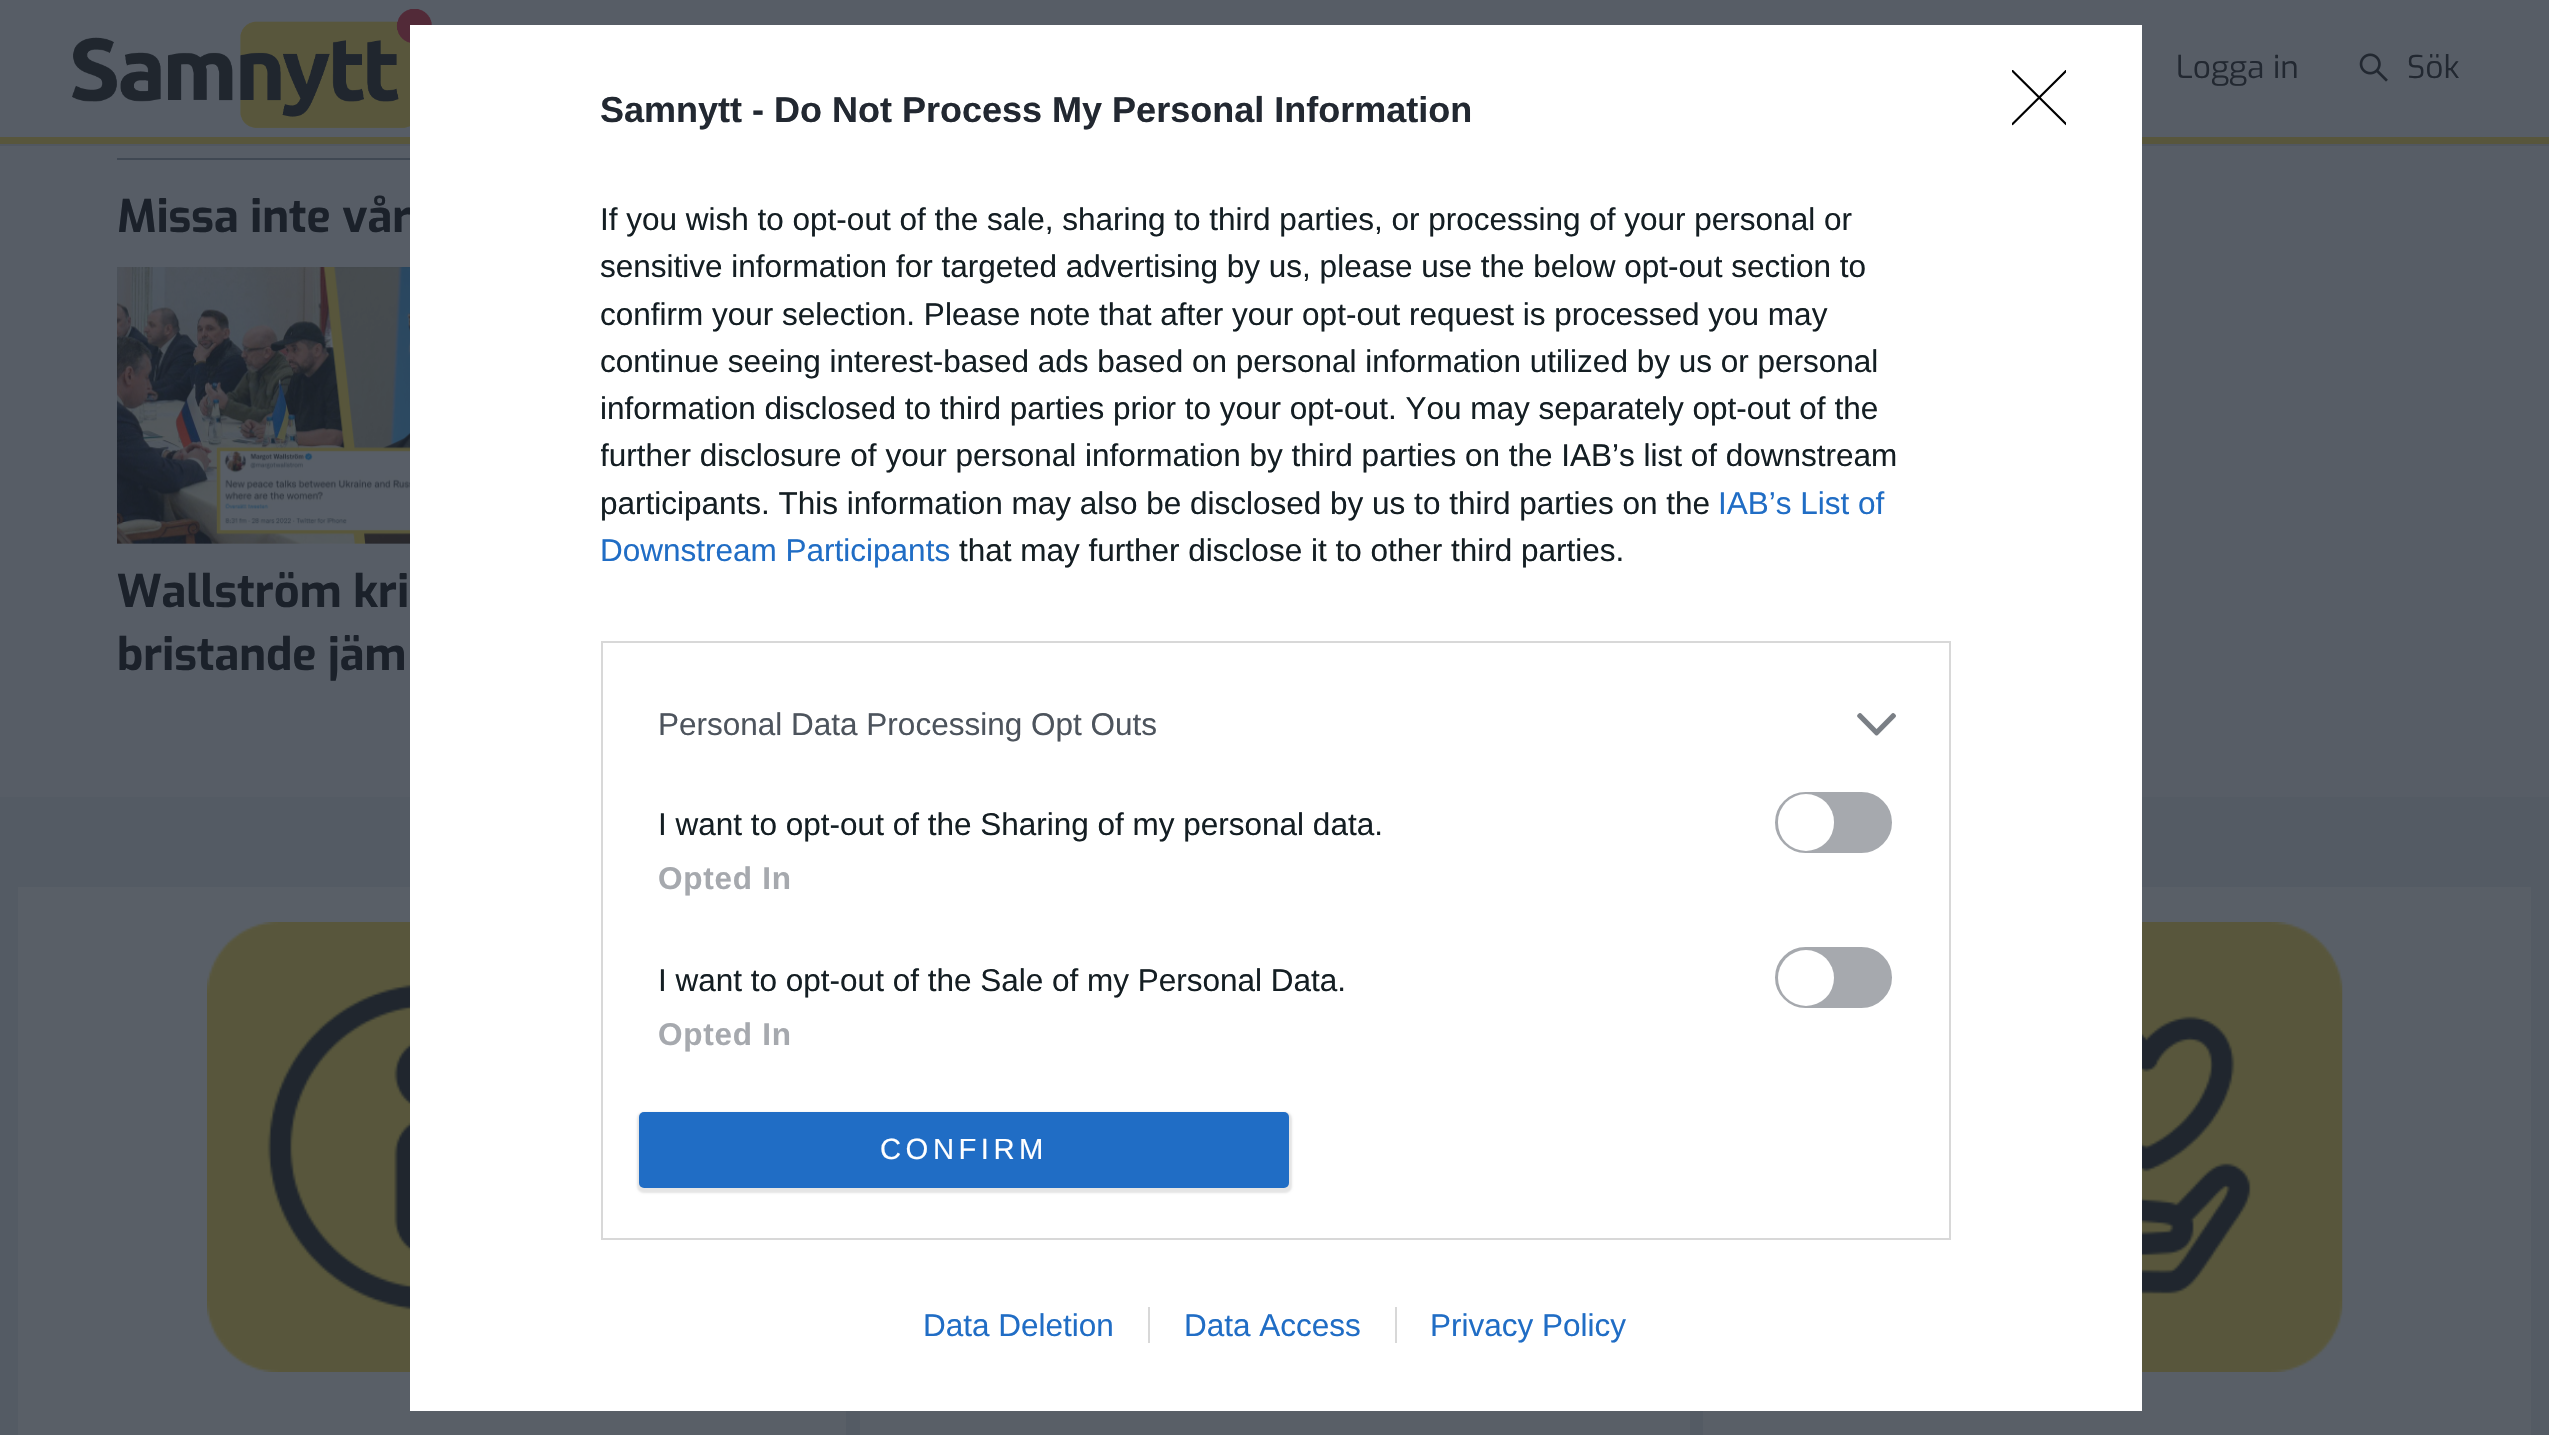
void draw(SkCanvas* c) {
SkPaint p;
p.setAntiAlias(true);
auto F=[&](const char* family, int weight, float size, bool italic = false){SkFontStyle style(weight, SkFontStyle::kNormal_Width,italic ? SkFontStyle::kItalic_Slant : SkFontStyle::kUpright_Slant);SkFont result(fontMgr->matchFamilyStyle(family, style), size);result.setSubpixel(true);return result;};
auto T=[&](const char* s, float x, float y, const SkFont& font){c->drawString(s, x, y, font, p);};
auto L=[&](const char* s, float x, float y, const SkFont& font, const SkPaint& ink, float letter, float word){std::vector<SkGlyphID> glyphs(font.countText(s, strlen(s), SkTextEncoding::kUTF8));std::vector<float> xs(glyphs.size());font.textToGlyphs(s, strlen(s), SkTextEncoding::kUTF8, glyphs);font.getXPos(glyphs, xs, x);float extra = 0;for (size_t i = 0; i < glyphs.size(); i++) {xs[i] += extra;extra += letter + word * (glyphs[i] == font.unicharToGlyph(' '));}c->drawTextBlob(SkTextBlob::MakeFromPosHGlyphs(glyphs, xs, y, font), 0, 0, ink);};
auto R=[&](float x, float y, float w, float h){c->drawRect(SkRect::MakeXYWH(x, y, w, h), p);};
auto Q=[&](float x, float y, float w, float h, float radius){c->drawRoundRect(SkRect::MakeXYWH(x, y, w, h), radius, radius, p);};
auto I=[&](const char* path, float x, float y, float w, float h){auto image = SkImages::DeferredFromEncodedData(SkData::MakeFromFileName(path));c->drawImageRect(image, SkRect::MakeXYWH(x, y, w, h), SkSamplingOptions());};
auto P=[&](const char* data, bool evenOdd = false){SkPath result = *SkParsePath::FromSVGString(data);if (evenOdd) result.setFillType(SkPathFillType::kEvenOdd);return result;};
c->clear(0xff575d66);
p.setColor(0x1a191f27);
R(0,144,2549,2);
p.setColor(0xff58563c);
R(0,137,2549,7);
I("1.png",72,9,360,119);
auto f1 = F("Exo",400,31.5);
p.setColor(0xff222831);
T("Logga in",2176,78,f1);
I("2.png",2359,53,29,29);
T("Sök",2407,78,f1);
p.setColor(0xff404853);
R(117,158,293,2);
auto f2 = F("Exo",700,45);
p.setColor(0xff1b212a);
T("Missa inte vår",117,232,f2);
I("3.png",117,267,293,277);
T("Wallström kri",117,607,f2);
T("bristande jäm",117,670,f2);
p.setColor(0xff545b64);
R(0,797,2549,638);
p.setColor(0xff595f67);
R(18,887,828,548);
R(1703,887,828,548);
p.setColor(0xffffffff);
R(410,25,1732,1386);
auto f3 = F("Liberation Sans",700,36);
p.setColor(0xff222831);
T("Samnytt - Do Not Process My Personal Information",600,122,f3);
auto f4 = F("Liberation Sans",400,31.5);
p.setColor(0xff141e23);
T("If you wish to opt-out of the sale, sharing to third parties, or processing of your personal or",600,230,f4);
T("sensitive information for targeted advertising by us, please use the below opt-out section to",600,277,f4);
T("confirm your selection. Please note that after your opt-out request is processed you may",600,325,f4);
T("continue seeing interest-based ads based on personal information utilized by us or personal",600,372,f4);
T("information disclosed to third parties prior to your opt-out. You may separately opt-out of the",600,419,f4);
c->save();
c->clipRect(SkRect::MakeXYWH(601,162,1350,446));
T("further disclosure of your personal information by third parties on the IAB’s list of downstream",600,466,f4);
c->restore();
T("participants. This information may also be disclosed by us to third parties on the",600,514,f4);
p.setColor(0xff206dc5);
T("IAB’s List of",1718,514,f4);
T("Downstream Participants",600,561,f4);
p.setColor(0xff141e23);
T("that may further disclose it to other third parties.",959,561,f4);
p.setStroke(true);
p.setStrokeWidth(2);
p.setColor(0xffd8d8d8);
c->drawRect(SkRect::MakeXYWH(602,642,1348,597),p);
p.setStroke(false);
p.setColor(0xff4d545d);
T("Personal Data Processing Opt Outs",658,735,f4);
I("4.png",1857,713,39,23);
p.setColor(0xff141e23);
T("I want to opt-out of the Sharing of my personal data.",658,835,f4);
p.setColor(0xffa6a9ae);
c->drawRoundRect(SkRect::MakeXYWH(1776,793,115,59),29.5,29.5,p);
p.setStroke(true);
c->drawRoundRect(SkRect::MakeXYWH(1776,793,115,59),29.5,29.5,p);
p.setStroke(false);
p.setColor(0xffffffff);
Q(1778,794,56,57,28);
auto f5 = F("Liberation Sans",700,31.5);
p.setColor(0xffa6a9ae);
L("Opted In",658,889,f5,p,.75,0);
p.setColor(0xff141e23);
T("I want to opt-out of the Sale of my Personal Data.",658,991,f4);
p.setColor(0xffa6a9ae);
c->drawRoundRect(SkRect::MakeXYWH(1776,948,115,59),29.5,29.5,p);
p.setStroke(true);
c->drawRoundRect(SkRect::MakeXYWH(1776,948,115,59),29.5,29.5,p);
p.setStroke(false);
p.setColor(0xffffffff);
c->drawCircle(1806,978,28,p);
p.setColor(0xffa6a9ae);
L("Opted In",658,1045,f5,p,.75,0);
p.setColor(0x1a000000);
p.setMaskFilter(SkMaskFilter::MakeBlur(kNormal_SkBlurStyle, 1));
c->drawRoundRect(SkRect::MakeXYWH(637,1112,655,81),7,7,p);
p.setMaskFilter(nullptr);
p.setColor(0xff206dc5);
Q(639,1112,650,76,5);
auto f6 = F("Liberation Sans",400,29.25);
p.setColor(0xffffffff);
L("CONFIRM",880,1159,f6,p,4.5,0);
c->save();
c->clipRect(SkRect::MakeXYWH(2012,70,54,56));
p.setStroke(true);
p.setStrokeWidth(2.3);
p.setStrokeCap(SkPaint::kRound_Cap);
p.setStrokeJoin(SkPaint::kRound_Join);
p.setColor(0xff000000);
c->drawPath(P("M2012.5 71l53.5 53m0-53l-53.5 53"),p);
c->restore();
p.setStroke(false);
p.setColor(0xff206dc5);
T("Data Deletion",923,1336,f4);
T("Data Access",1184,1336,f4);
p.setColor(0xffd8d8d8);
R(1148,1307,2,36);
p.setColor(0xff206dc5);
T("Privacy Policy",1430,1336,f4);
p.setColor(0xffd8d8d8);
R(1395,1307,2,36);
I("5.png",207,922,203,450);
p.setColor(0xff595f67);
R(860,1411,830,24);
I("6.png",2142,922,201,450);
}
